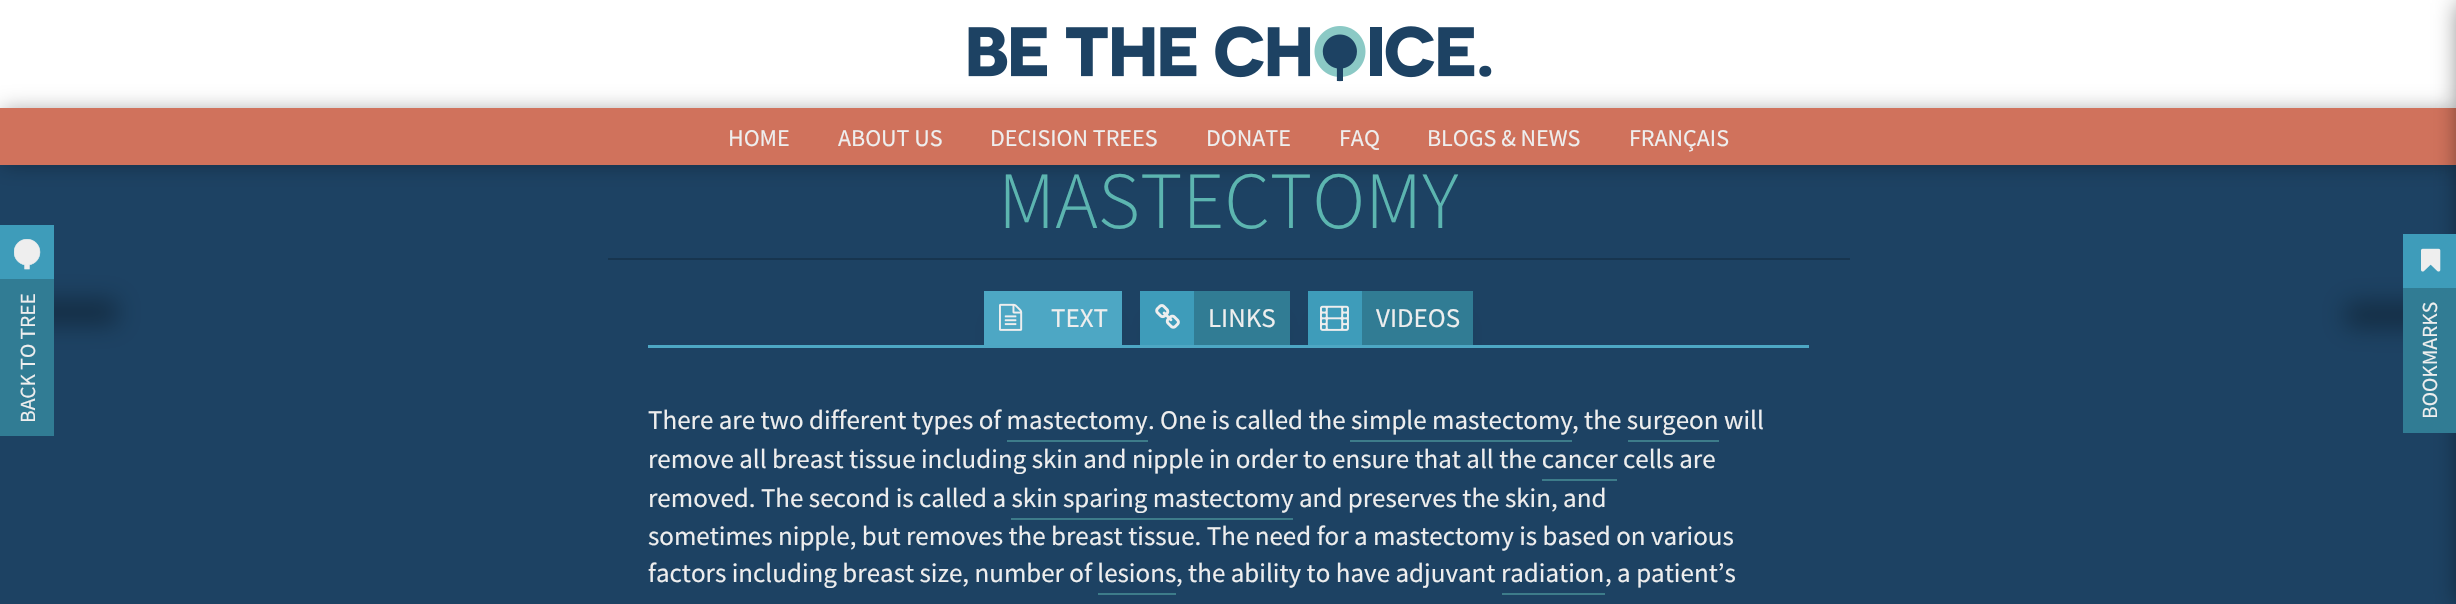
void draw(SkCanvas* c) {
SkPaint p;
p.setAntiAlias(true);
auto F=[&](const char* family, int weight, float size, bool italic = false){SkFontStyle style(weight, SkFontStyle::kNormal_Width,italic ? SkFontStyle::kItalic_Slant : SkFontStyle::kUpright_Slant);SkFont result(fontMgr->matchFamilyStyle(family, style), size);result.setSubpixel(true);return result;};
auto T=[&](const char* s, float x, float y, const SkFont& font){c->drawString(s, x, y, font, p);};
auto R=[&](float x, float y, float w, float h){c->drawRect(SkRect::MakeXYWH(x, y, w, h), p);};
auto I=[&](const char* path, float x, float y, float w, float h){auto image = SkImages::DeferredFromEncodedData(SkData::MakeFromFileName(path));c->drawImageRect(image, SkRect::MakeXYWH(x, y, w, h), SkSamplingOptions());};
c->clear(0xff1d4263);
p.setColor(0xffffffff);
R(0,0,2456,108);
I("1.png",968,26,524,56);
p.setColor(0x59000000);
p.setMaskFilter(SkMaskFilter::MakeBlur(kNormal_SkBlurStyle, 10.5));
c->drawRect(SkRect::MakeXYWH(2,110,2454,54),p);
p.setMaskFilter(nullptr);
p.setColor(0xffd0725c);
R(0,108,2456,57);
auto f1 = F("Source Sans Pro",400,24);
p.setColor(0xffeeeeee);
T("HOME",728,146,f1);
T("ABOUT US",838,146,f1);
T("DECISION TREES",990,146,f1);
T("DONATE",1206,146,f1);
T("FAQ",1339,146,f1);
T("BLOGS & NEWS",1427,146,f1);
T("FRANÇAIS",1629,146,f1);
p.setColor(0xff17354f);
R(608,258,1242,2);
auto f2 = F("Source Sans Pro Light",300,81);
p.setColor(0xff5cb5b0);
T("MASTECTOMY",998,228,f2);
p.setColor(0x59000000);
p.setMaskFilter(SkMaskFilter::MakeBlur(kNormal_SkBlurStyle, 12));
c->drawRect(SkRect::MakeXYWH(-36,300,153,24),p);
p.setMaskFilter(nullptr);
p.setColor(0xff3e9cba);
R(0,225,54,54);
I("2.png",14,239,27,31);
p.setColor(0xff317c94);
R(0,279,54,157);
auto f3 = F("Source Sans Pro",400,21.5);
p.setColor(0xffeeeeee);
c->save();
c->rotate(-90,35,423);
T("BACK TO TREE",35,423,f3);
c->restore();
p.setColor(0xff4da7c4);
R(648,345,1161,3);
c->save();
c->clipRect(SkRect::MakeXYWH(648,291,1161,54));
p.setColor(0x59000000);
p.setMaskFilter(SkMaskFilter::MakeBlur(kNormal_SkBlurStyle, 12));
c->drawRect(SkRect::MakeXYWH(999,324,108,24),p);
p.setMaskFilter(nullptr);
c->restore();
p.setColor(0xff4da7c4);
R(984,291,138,54);
I("3.png",999,303,24,28);
auto f4 = F("Source Sans Pro",400,27);
p.setColor(0xffeeeeee);
T("TEXT",1051,327,f4);
c->save();
c->clipRect(SkRect::MakeXYWH(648,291,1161,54));
p.setColor(0x59000000);
p.setMaskFilter(SkMaskFilter::MakeBlur(kNormal_SkBlurStyle, 12));
c->drawRect(SkRect::MakeXYWH(1155,324,120,24),p);
p.setMaskFilter(nullptr);
c->restore();
p.setColor(0xff317c94);
R(1194,291,96,54);
p.setColor(0xff3e9cba);
R(1140,291,54,54);
I("4.png",1155,304,25,25);
p.setColor(0xffeeeeee);
T("LINKS",1208,327,f4);
c->save();
c->clipRect(SkRect::MakeXYWH(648,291,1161,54));
p.setColor(0x59000000);
p.setMaskFilter(SkMaskFilter::MakeBlur(kNormal_SkBlurStyle, 12));
c->drawRect(SkRect::MakeXYWH(1323,324,135,24),p);
p.setMaskFilter(nullptr);
c->restore();
p.setColor(0xff317c94);
R(1362,291,111,54);
p.setColor(0xff3e9cba);
R(1308,291,54,54);
I("5.png",1320,305,29,26);
p.setColor(0xffeeeeee);
T("VIDEOS",1376,327,f4);
T("There are two different types of mastectomy",648,429,f4);
T(". One is called the simple mastectomy",1148,429,f4);
T(", the surgeon",1572,429,f4);
T("will",1724,429,f4);
p.setColor(0xff3d7c8a);
R(1007,440,141,2);
R(1350,440,222,2);
R(1628,440,91,2);
p.setColor(0xffeeeeee);
T("remove all breast tissue including skin and nipple in order to ensure that all the cancer",648,468,f4);
T("cells are",1623,468,f4);
p.setColor(0xff3d7c8a);
R(1542,479,75,2);
p.setColor(0xffeeeeee);
T("removed. The second is called a skin sparing mastectomy",648,507,f4);
T("and preserves the skin, and",1299,507,f4);
p.setColor(0xff3d7c8a);
R(1011,518,282,2);
p.setColor(0xffeeeeee);
T("sometimes nipple, but removes the breast tissue. The need for a mastectomy is based on various",648,545,f4);
T("factors including breast size, number of lesions",648,582,f4);
T(", the ability to have adjuvant radiation",1176,582,f4);
T(", a patient’s",1605,582,f4);
p.setColor(0xff3d7c8a);
R(1098,593,78,2);
R(1502,593,103,2);
p.setColor(0x80000000);
p.setMaskFilter(SkMaskFilter::MakeBlur(kNormal_SkBlurStyle, 12));
c->drawRect(SkRect::MakeXYWH(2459,3,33,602),p);
p.setMaskFilter(nullptr);
p.setColor(0x59000000);
p.setMaskFilter(SkMaskFilter::MakeBlur(kNormal_SkBlurStyle, 12));
c->drawRect(SkRect::MakeXYWH(2346,303,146,24),p);
p.setMaskFilter(nullptr);
p.setColor(0xff3e9cba);
R(2403,234,53,54);
I("6.png",2421,248,20,24);
p.setColor(0xff317c94);
R(2403,288,53,145);
p.setColor(0xffeeeeee);
c->save();
c->rotate(-90,2437,419);
T("BOOKMARKS",2437,419,f3);
c->restore();
}
